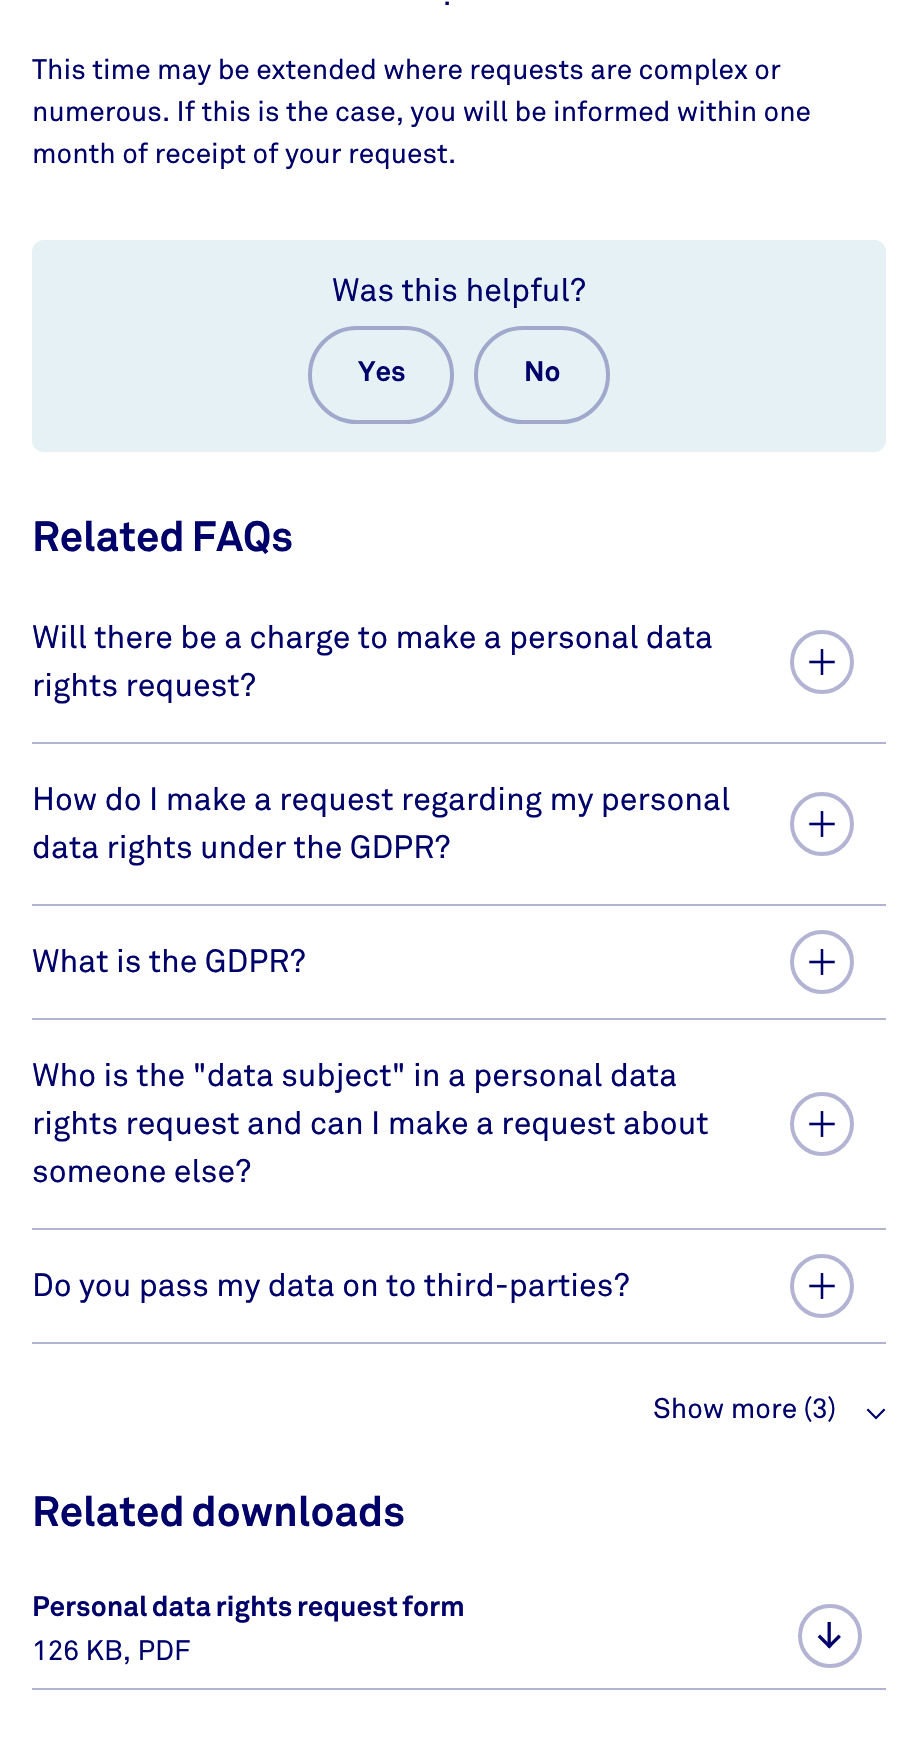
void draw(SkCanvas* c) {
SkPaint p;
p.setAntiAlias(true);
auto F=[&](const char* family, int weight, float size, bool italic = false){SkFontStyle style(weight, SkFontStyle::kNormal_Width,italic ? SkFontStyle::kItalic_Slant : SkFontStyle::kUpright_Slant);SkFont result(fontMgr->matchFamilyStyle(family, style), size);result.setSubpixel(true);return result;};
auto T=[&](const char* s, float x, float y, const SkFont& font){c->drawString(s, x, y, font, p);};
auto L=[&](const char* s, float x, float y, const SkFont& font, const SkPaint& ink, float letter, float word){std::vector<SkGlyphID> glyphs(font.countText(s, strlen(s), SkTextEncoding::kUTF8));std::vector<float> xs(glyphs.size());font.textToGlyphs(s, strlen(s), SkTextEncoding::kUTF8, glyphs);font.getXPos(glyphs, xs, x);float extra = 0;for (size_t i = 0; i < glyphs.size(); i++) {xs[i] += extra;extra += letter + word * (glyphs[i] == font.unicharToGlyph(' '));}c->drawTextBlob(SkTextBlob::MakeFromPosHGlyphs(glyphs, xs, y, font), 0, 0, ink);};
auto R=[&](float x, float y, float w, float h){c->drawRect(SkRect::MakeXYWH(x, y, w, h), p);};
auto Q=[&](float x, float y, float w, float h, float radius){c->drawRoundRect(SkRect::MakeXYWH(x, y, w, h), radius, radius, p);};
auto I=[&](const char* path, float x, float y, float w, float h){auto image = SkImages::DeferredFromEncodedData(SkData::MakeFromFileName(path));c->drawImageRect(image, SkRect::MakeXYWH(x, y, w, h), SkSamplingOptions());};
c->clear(0xffffffff);
auto f1 = F("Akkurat",400,28);
p.setColor(0xff00006b);
T(".",443,5,f1);
T("This time may be extended where requests are complex or",32,79,f1);
T("numerous. If this is the case, you will be informed within one",32,121,f1);
T("month of receipt of your request.",32,163,f1);
p.setColor(0xffe5f1f4);
Q(32,240,854,212,12);
auto f2 = F("Akkurat",400,32);
p.setColor(0xff00006b);
T("Was this helpful?",332,301,f2);
p.setStroke(true);
p.setStrokeWidth(4);
p.setColor(0xffa0a9cb);
c->drawRoundRect(SkRect::MakeXYWH(310,328,142,94),47,47,p);
auto f3 = F("Akkurat",700,28);
p.setStroke(false);
p.setColor(0xff00006b);
T("Yes",358,381,f3);
p.setStroke(true);
p.setColor(0xffa0a9cb);
c->drawRoundRect(SkRect::MakeXYWH(476,328,132,94),47,47,p);
p.setStroke(false);
p.setColor(0xff00006b);
T("No",524,381,f3);
auto f4 = F("Akkurat",700,42);
L("Related FAQs",32,551,f4,p,0,-2);
p.setColor(0xffb3b3d3);
R(32,742,854,2);
p.setColor(0xff00006b);
T("Will there be a charge to make a personal data",32,648,f2);
T("rights request?",32,696,f2);
p.setStroke(true);
p.setColor(0xffb3b3d3);
c->drawCircle(822,662,30,p);
I("1.png",809,649,26,26);
p.setStroke(false);
R(32,904,854,2);
p.setColor(0xff00006b);
T("How do I make a request regarding my personal",32,810,f2);
T("data rights under the GDPR?",32,858,f2);
p.setStroke(true);
p.setColor(0xffb3b3d3);
c->drawCircle(822,824,30,p);
I("1.png",809,811,26,26);
p.setStroke(false);
R(32,1018,854,2);
p.setColor(0xff00006b);
T("What is the GDPR?",32,972,f2);
p.setStroke(true);
p.setColor(0xffb3b3d3);
c->drawCircle(822,962,30,p);
I("1.png",809,949,26,26);
p.setStroke(false);
R(32,1228,854,2);
p.setColor(0xff00006b);
T("Who is the \"data subject\" in a personal data",32,1086,f2);
T("rights request and can I make a request about",32,1134,f2);
T("someone else?",32,1182,f2);
p.setStroke(true);
p.setColor(0xffb3b3d3);
c->drawCircle(822,1124,30,p);
I("1.png",809,1111,26,26);
p.setStroke(false);
R(32,1342,854,2);
p.setColor(0xff00006b);
T("Do you pass my data on to third-parties?",32,1296,f2);
p.setStroke(true);
p.setColor(0xffb3b3d3);
c->drawCircle(822,1286,30,p);
I("1.png",809,1273,26,26);
p.setStroke(false);
p.setColor(0xff00006b);
T("Show more (3)",653,1418,f1);
I("2.png",866,1408,20,12);
L("Related downloads",32,1526,f4,p,0,-2);
p.setColor(0xffb3b3d3);
R(32,1688,854,2);
p.setColor(0xff00006b);
L("Personal data rights request form",32,1616,f3,p,0,-1.5);
p.setStroke(true);
p.setColor(0xffb3b3d3);
c->drawCircle(830,1636,30,p);
I("3.png",817,1622,24,27);
p.setStroke(false);
p.setColor(0xff00006b);
T("126 KB, PDF",32,1660,f1);
}
